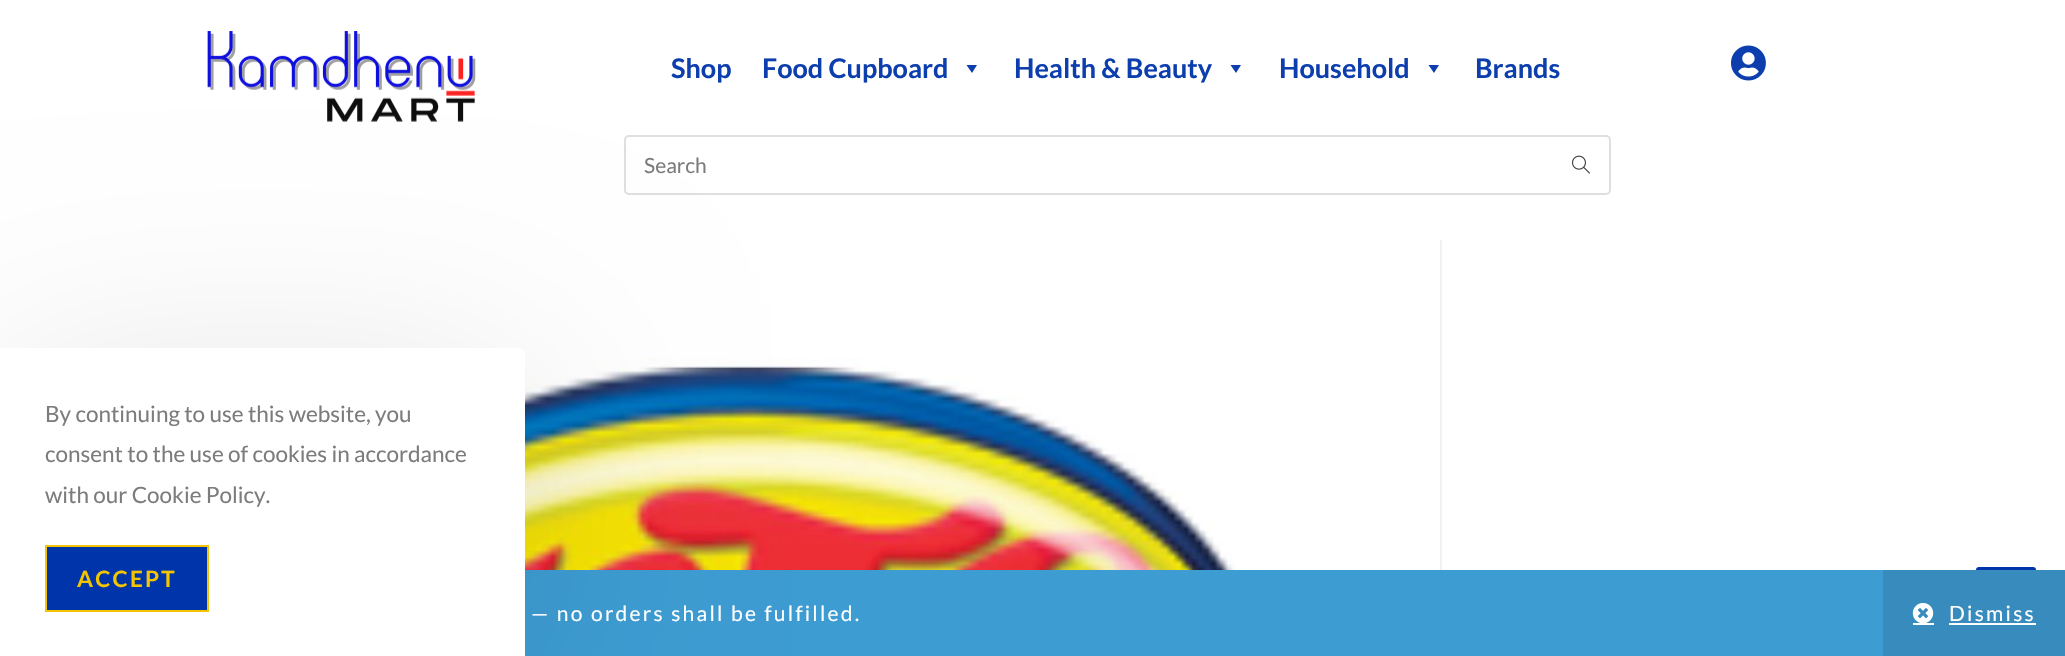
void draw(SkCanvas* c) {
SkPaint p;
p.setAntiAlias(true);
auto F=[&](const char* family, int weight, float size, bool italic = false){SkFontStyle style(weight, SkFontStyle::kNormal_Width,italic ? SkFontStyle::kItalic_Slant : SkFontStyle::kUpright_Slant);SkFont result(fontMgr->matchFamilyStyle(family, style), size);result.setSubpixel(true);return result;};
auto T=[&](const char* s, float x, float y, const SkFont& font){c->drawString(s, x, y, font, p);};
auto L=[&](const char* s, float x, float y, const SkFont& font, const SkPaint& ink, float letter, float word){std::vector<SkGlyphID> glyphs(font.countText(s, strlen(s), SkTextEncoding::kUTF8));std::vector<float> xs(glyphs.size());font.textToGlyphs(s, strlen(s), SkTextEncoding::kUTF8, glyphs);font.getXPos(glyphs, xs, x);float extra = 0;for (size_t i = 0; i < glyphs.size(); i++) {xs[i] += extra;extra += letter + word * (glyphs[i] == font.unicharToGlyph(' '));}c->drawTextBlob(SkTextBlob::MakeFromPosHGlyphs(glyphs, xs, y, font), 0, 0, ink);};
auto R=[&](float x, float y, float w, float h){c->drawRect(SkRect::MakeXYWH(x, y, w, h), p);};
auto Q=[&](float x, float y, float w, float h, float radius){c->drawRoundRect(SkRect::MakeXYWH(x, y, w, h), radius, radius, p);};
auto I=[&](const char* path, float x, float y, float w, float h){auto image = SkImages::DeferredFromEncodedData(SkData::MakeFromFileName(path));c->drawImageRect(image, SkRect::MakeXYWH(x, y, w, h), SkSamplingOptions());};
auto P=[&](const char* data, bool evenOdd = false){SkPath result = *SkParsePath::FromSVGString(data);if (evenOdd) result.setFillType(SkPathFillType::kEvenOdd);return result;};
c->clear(0xffffffff);
I("1.png",207,31,269,91);
auto f1 = F("Lato",700,27);
p.setColor(0xff0d3eae);
T("Shop",671,78,f1);
T("Food Cupboard",762,78,f1);
c->drawPath(P("M977 65l-5 8l-5.5-8z"),p);
T("Health & Beauty",1014,78,f1);
c->drawPath(P("M1241 65l-5 8l-5.5-8z"),p);
T("Household",1279,78,f1);
c->drawPath(P("M1439 65l-5 8l-5.5-8z"),p);
T("Brands",1475,78,f1);
p.setStroke(true);
p.setStrokeWidth(2);
p.setColor(0xffdfdfdf);
c->drawRoundRect(SkRect::MakeXYWH(625,136,985,58),4,4,p);
auto f2 = F("Lato",400,21);
p.setStroke(false);
p.setColor(0xff7c7c7c);
T("Search",644,173,f2);
I("2.png",1571,155,19,19);
I("3.png",1731,45,35,36);
p.setColor(0xfff1f1f1);
R(1440,240,2,330);
I("4.png",525,358,742,212);
p.setColor(0xff3d9cd2);
R(525,570,1358,86);
p.setColor(0x1a000000);
p.setMaskFilter(SkMaskFilter::MakeBlur(kNormal_SkBlurStyle, 112.5));
c->drawRoundRect(SkRect::MakeXYWH(0,378,525,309),6,6,p);
p.setMaskFilter(nullptr);
p.setColor(0xffffffff);
c->drawPath(P("M0 348h519c3.5 0 6 2.5 6 6v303h-525z"),p);
auto f3 = F("Lato",400,22.5);
p.setColor(0xff7c7c7c);
T("By continuing to use this website, you",45,422,f3);
T("consent to the use of cookies in accordance",45,462,f3);
T("with our Cookie Policy.",45,503,f3);
p.setColor(0xff0034aa);
c->drawRect(SkRect::MakeXYWH(46,546,162,65),p);
p.setStroke(true);
p.setColor(0xfff2c500);
c->drawRect(SkRect::MakeXYWH(46,546,162,65),p);
auto f4 = F("Lato",700,22.5);
p.setStroke(false);
L("ACCEPT",77,587,f4,p,2.25,0);
p.setColor(0xff0034aa);
Q(1976,567,60,60,3);
p.setColor(0xffffffff);
L("— no orders shall be fulfilled.",531,621,f2,p,2.25,0);
p.setColor(0xff378cbd);
R(1883,570,182,86);
I("5.png",1912,603,22,20);
p.setColor(0xffffffff);
L("Dismiss",1949,621,f2,p,2.25,0);
R(1949,623,87,2);
R(1913,623,21,2);
}
